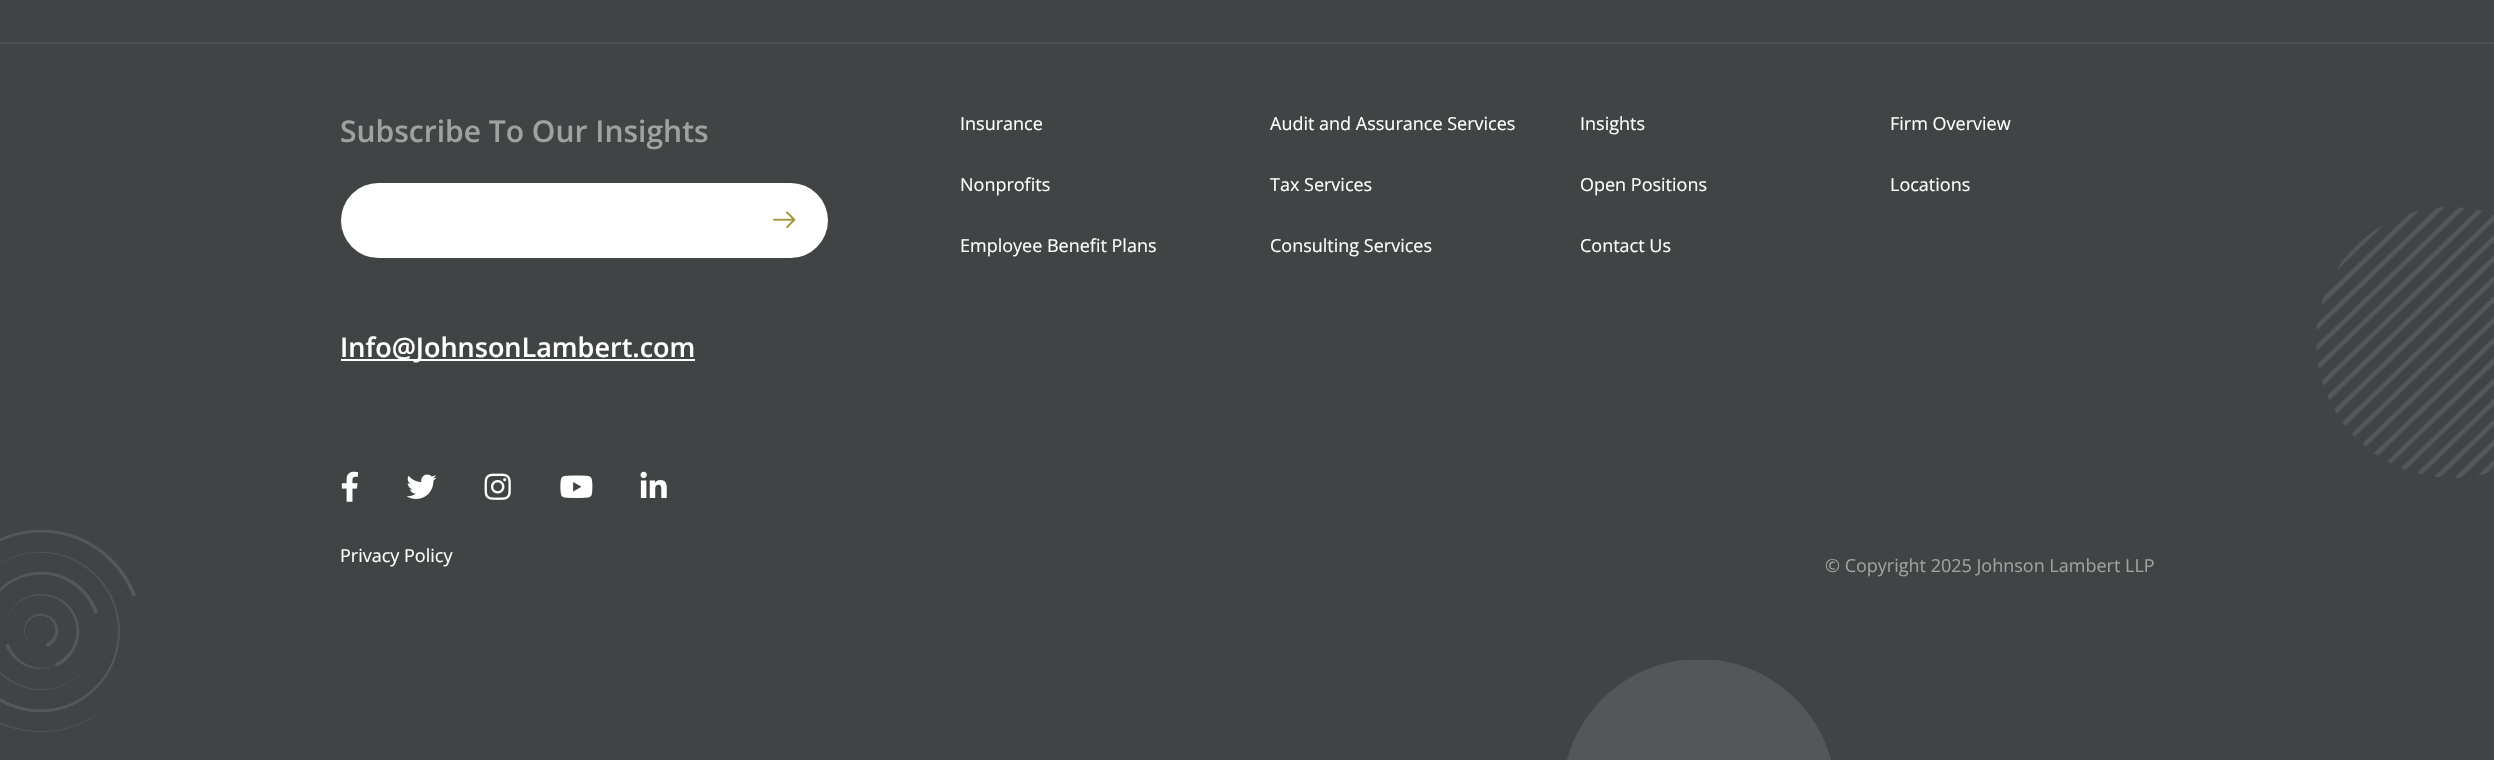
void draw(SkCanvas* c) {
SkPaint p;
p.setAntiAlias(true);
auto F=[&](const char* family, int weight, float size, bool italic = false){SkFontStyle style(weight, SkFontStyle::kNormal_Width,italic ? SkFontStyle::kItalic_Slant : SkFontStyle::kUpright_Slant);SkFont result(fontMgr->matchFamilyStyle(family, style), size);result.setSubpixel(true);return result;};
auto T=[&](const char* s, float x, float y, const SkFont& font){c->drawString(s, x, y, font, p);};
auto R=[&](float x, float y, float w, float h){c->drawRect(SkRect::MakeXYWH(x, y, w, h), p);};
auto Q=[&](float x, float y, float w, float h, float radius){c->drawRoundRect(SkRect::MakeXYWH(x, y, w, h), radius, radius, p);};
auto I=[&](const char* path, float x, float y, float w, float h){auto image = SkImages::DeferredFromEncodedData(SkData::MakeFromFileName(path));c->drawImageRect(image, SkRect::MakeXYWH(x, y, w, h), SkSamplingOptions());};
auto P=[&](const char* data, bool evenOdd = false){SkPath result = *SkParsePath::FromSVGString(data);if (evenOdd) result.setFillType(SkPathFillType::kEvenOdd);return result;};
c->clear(0xff414445);
p.setColor(0xff4e5051);
R(0,42,2494,2);
auto f1 = F("Open Sans",600,30);
p.setColor(0xffa0a2a2);
T("Subscribe To Our Insights",340,142,f1);
p.setColor(0xffffffff);
Q(341,183,487,75,37.5);
I("1.png",773,211,23,18);
R(341,359,354,2);
auto f2 = F("Open Sans",600,27);
T("Info@JohnsonLambert.com",340,357,f2);
auto f3 = F("Open Sans",400,18);
T("Insurance",960,130,f3);
T("Nonprofits",960,191,f3);
T("Employee Benefit Plans",960,252,f3);
T("Audit and Assurance Services",1270,130,f3);
T("Tax Services",1270,191,f3);
T("Consulting Services",1270,252,f3);
T("Insights",1580,130,f3);
T("Open Positions",1580,191,f3);
T("Contact Us",1580,252,f3);
T("Firm Overview",1890,130,f3);
T("Locations",1890,191,f3);
I("2.png",2316,207,178,271);
I("3.png",0,530,136,202);
I("4.png",341,471,17,31);
I("5.png",406,474,31,25);
I("6.png",484,473,27,27);
I("7.png",560,475,33,23);
I("8.png",640,471,27,27);
T("Privacy Policy",340,562,f3);
p.setColor(0xffa0a2a2);
T("© Copyright 2025 Johnson Lambert LLP",1825,572,f3);
c->save();
c->clipRect(SkRect::MakeXYWH(1562,660,274,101));
p.setColor(0xff545758);
c->drawPath(P("M1699 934c-76 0-137-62-137-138c0-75 61-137 137-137c76 0 137 62 137 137c0 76-61 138-137 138z",true),p);
c->restore();
}
